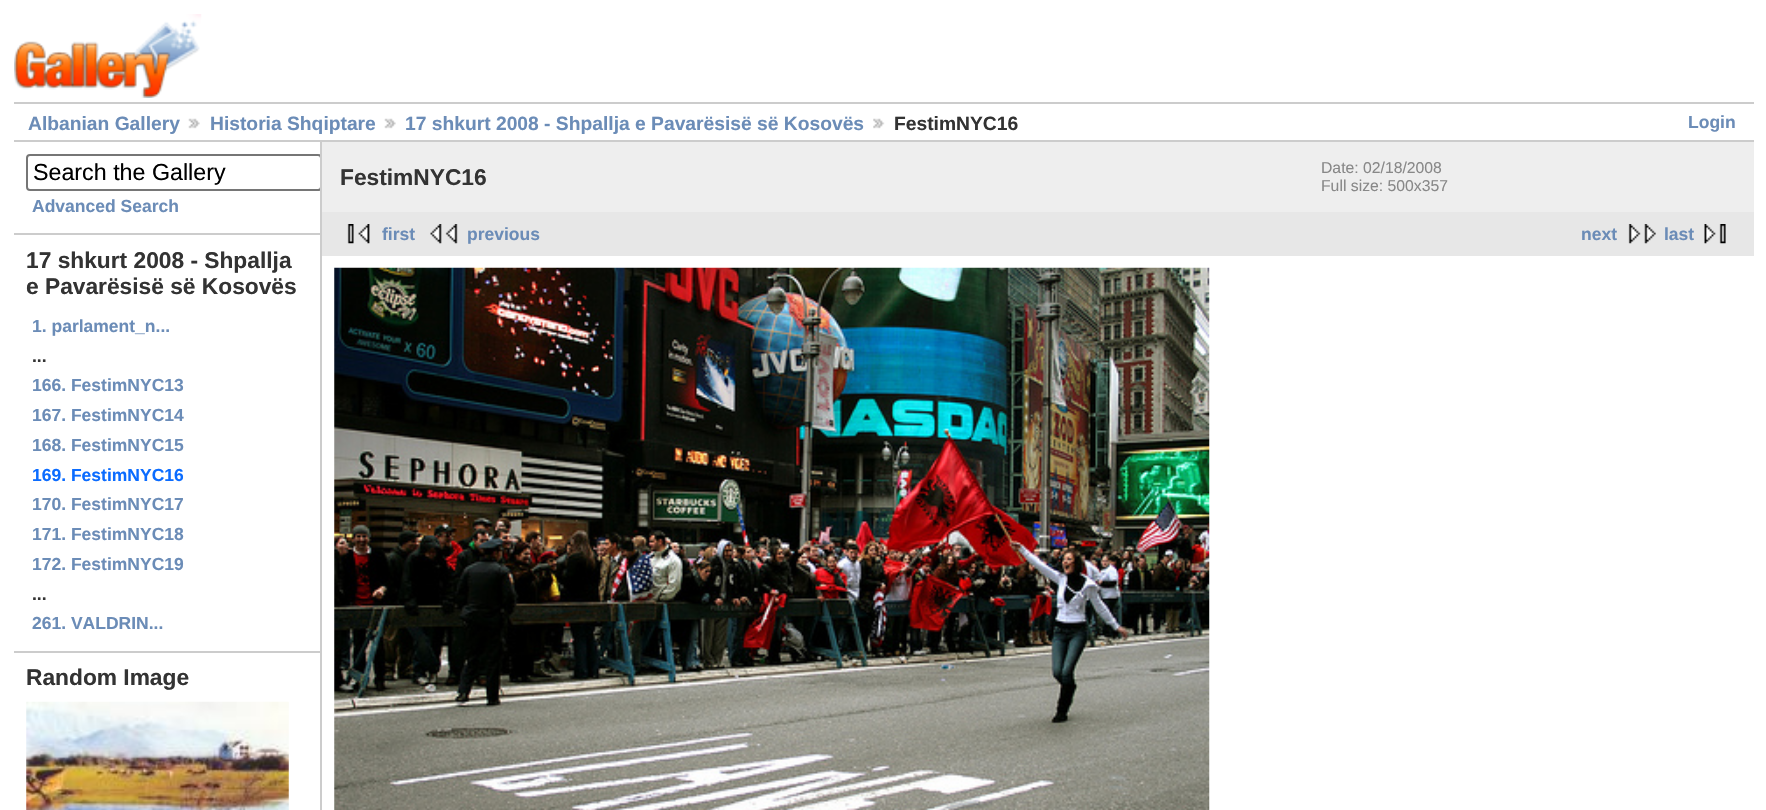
void draw(SkCanvas* c) {
SkPaint p;
p.setAntiAlias(true);
auto F=[&](const char* family, int weight, float size, bool italic = false){SkFontStyle style(weight, SkFontStyle::kNormal_Width,italic ? SkFontStyle::kItalic_Slant : SkFontStyle::kUpright_Slant);SkFont result(fontMgr->matchFamilyStyle(family, style), size);result.setSubpixel(true);return result;};
auto T=[&](const char* s, float x, float y, const SkFont& font){c->drawString(s, x, y, font, p);};
auto R=[&](float x, float y, float w, float h){c->drawRect(SkRect::MakeXYWH(x, y, w, h), p);};
auto I=[&](const char* path, float x, float y, float w, float h){auto image = SkImages::DeferredFromEncodedData(SkData::MakeFromFileName(path));c->drawImageRect(image, SkRect::MakeXYWH(x, y, w, h), SkSamplingOptions());};
c->clear(0xffffffff);
I("1.png",14,14,188,84);
p.setColor(0xffcccccc);
R(14,102,1740,2);
R(14,140,1740,2);
auto f1 = F("Liberation Sans",700,19.25);
p.setColor(0xff6b8cb7);
T("Albanian Gallery",28,130,f1);
I("2.png",188,118,12,11);
T("Historia Shqiptare",210,130,f1);
I("2.png",384,118,12,11);
T("17 shkurt 2008 - Shpallja e Pavarësisë së Kosovës",405,130,f1);
I("3.png",873,118,12,11);
p.setColor(0xff333333);
T("FestimNYC16",894,130,f1);
auto f2 = F("Liberation Sans",700,17.5);
p.setColor(0xff6b8cb7);
T("Login",1688,128,f2);
p.setColor(0xffcccccc);
R(320,142,2,668);
R(14,233,306,2);
c->save();
c->clipRect(SkRect::MakeXYWH(14,142,306,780));
p.setStroke(true);
p.setStrokeWidth(2);
p.setColor(0xff767676);
c->drawRoundRect(SkRect::MakeXYWH(27,155,294,35),3,3,p);
c->restore();
auto f3 = F("Liberation Sans",400,23.25);
p.setStroke(false);
p.setColor(0xff000000);
T("Search the Gallery",33,180,f3);
p.setColor(0xff6b8cb7);
T("Advanced Search",32,212,f2);
p.setColor(0xffcccccc);
R(14,651,306,2);
auto f4 = F("Liberation Sans",700,22.75);
p.setColor(0xff333333);
T("17 shkurt 2008 - Shpallja",26,268,f4);
T("e Pavarësisë së Kosovës",26,294,f4);
p.setColor(0xff6b8cb7);
T("1. parlament_n...",32,332,f2);
p.setColor(0xff333333);
T("...",32,362,f2);
p.setColor(0xff6b8cb7);
T("166. FestimNYC13",32,391,f2);
T("167. FestimNYC14",32,421,f2);
T("168. FestimNYC15",32,451,f2);
p.setColor(0xff0b6cff);
T("169. FestimNYC16",32,481,f2);
p.setColor(0xff6b8cb7);
T("170. FestimNYC17",32,510,f2);
T("171. FestimNYC18",32,540,f2);
T("172. FestimNYC19",32,570,f2);
p.setColor(0xff333333);
T("...",32,600,f2);
p.setColor(0xff6b8cb7);
T("261. VALDRIN...",32,629,f2);
p.setColor(0xff333333);
T("Random Image",26,685,f4);
I("4.png",26,701,263,109);
p.setColor(0xffeeeeee);
R(322,142,1432,70);
p.setColor(0xff333333);
T("FestimNYC16",340,185,f4);
auto f5 = F("Liberation Sans",400,15.75);
p.setColor(0xff888888);
T("Date: 02/18/2008",1321,173,f5);
T("Full size: 500x357",1321,191,f5);
p.setColor(0xffe7e7e7);
R(322,212,1432,44);
I("5.png",347,224,23,20);
p.setColor(0xff6b8cb7);
T("first",382,240,f2);
I("6.png",430,224,28,20);
T("previous",467,240,f2);
T("next",1581,240,f2);
I("7.png",1628,224,28,20);
T("last",1664,240,f2);
I("8.png",1704,224,22,20);
I("9.png",334,267,876,543);
}
